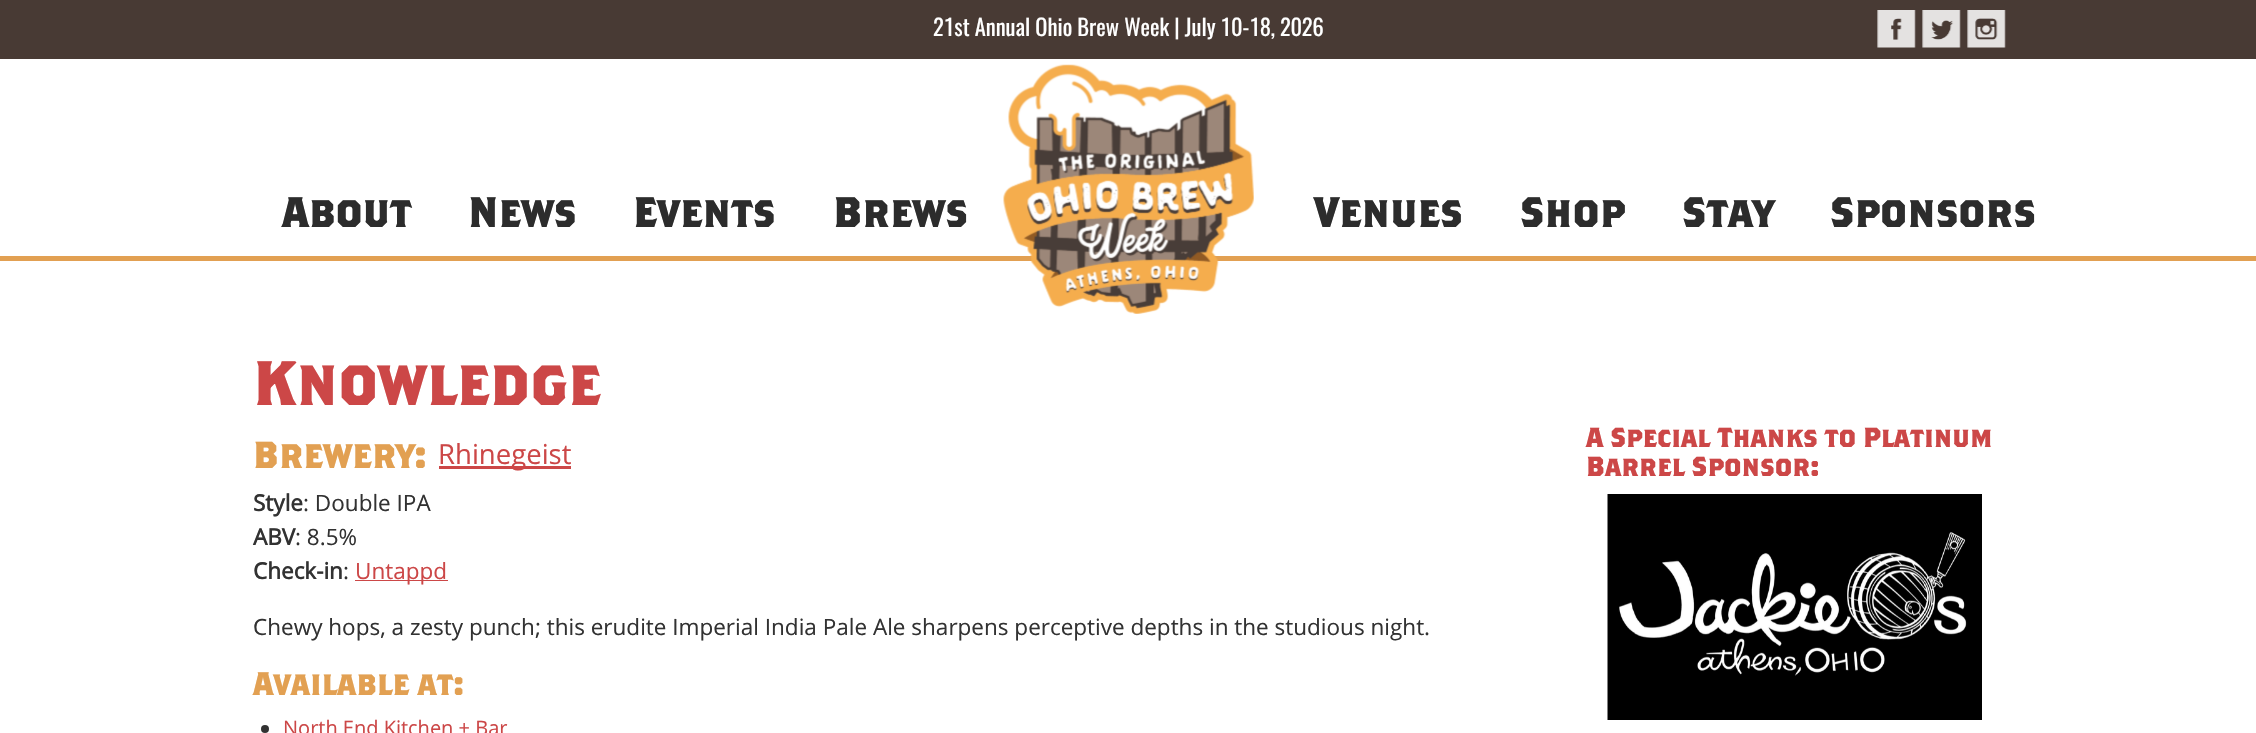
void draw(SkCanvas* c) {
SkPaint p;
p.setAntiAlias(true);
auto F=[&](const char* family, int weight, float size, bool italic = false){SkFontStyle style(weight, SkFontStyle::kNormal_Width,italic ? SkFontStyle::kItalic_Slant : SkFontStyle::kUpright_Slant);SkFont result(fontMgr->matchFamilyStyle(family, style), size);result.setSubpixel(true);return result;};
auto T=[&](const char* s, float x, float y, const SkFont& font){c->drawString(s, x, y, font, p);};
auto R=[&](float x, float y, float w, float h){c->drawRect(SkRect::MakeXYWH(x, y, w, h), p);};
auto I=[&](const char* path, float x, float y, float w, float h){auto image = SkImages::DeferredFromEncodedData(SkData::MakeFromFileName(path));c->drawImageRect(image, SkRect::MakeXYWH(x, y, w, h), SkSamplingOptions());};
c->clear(0xffffffff);
p.setColor(0xff483a34);
R(0,0,2256,59);
auto f1 = F("Oswald",400,22.5);
p.setColor(0xffffffff);
T("21st Annual Ohio Brew Week | July 10-18, 2026",933,36,f1);
I("1.png",1877,10,39,38);
I("2.png",1922,10,39,38);
I("3.png",1967,10,39,38);
p.setColor(0xffe2a052);
R(0,256,2256,5);
I("4.png",1003,64,251,250);
auto f2 = F("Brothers",700,42.5);
p.setColor(0xff2c2c2c);
T("About",282,227,f2);
T("News",468,227,f2);
T("Events",633,227,f2);
T("Brews",833,227,f2);
T("Venues",1314,227,f2);
T("Shop",1520,227,f2);
T("Stay",1682,227,f2);
T("Sponsors",1830,227,f2);
auto f3 = F("Brothers",700,62.5);
p.setColor(0xffcc4747);
T("Knowledge",253,405,f3);
auto f4 = F("Brothers",700,37.5);
p.setColor(0xffe2a052);
T("Brewery:",253,468,f4);
p.setColor(0xffcc4747);
R(439,466,132,3);
auto f5 = F("Open Sans",400,27.5);
T("Rhinegeist",438,464,f5);
auto f6 = F("Open Sans",700,22.5);
p.setColor(0xff323232);
T("Style",253,511,f6);
auto f7 = F("Open Sans",400,22.5);
T(": Double IPA",303,511,f7);
T("ABV",253,545,f6);
T(": 8.5%",295,545,f7);
T("Check-in",253,579,f6);
T(":",343,579,f7);
p.setColor(0xffcc4747);
R(355,580,93,1);
T("Untappd",355,579,f7);
p.setColor(0xff323232);
T("Chewy hops, a zesty punch; this erudite Imperial India Pale Ale sharpens perceptive depths in the studious night.",253,635,f7);
auto f8 = F("Brothers",700,32.5);
p.setColor(0xffe2a052);
T("Available at:",253,695,f8);
p.setColor(0xff323232);
c->drawCircle(265,729,4,p);
auto f9 = F("Open Sans",400,20);
p.setColor(0xffcc4747);
T("North End Kitchen + Bar",283,735,f9);
auto f10 = F("Brothers",700,27.5);
T("A Special Thanks to Platinum",1586,447,f10);
T("Barrel Sponsor:",1586,476,f10);
I("5.png",1607,494,375,226);
}
